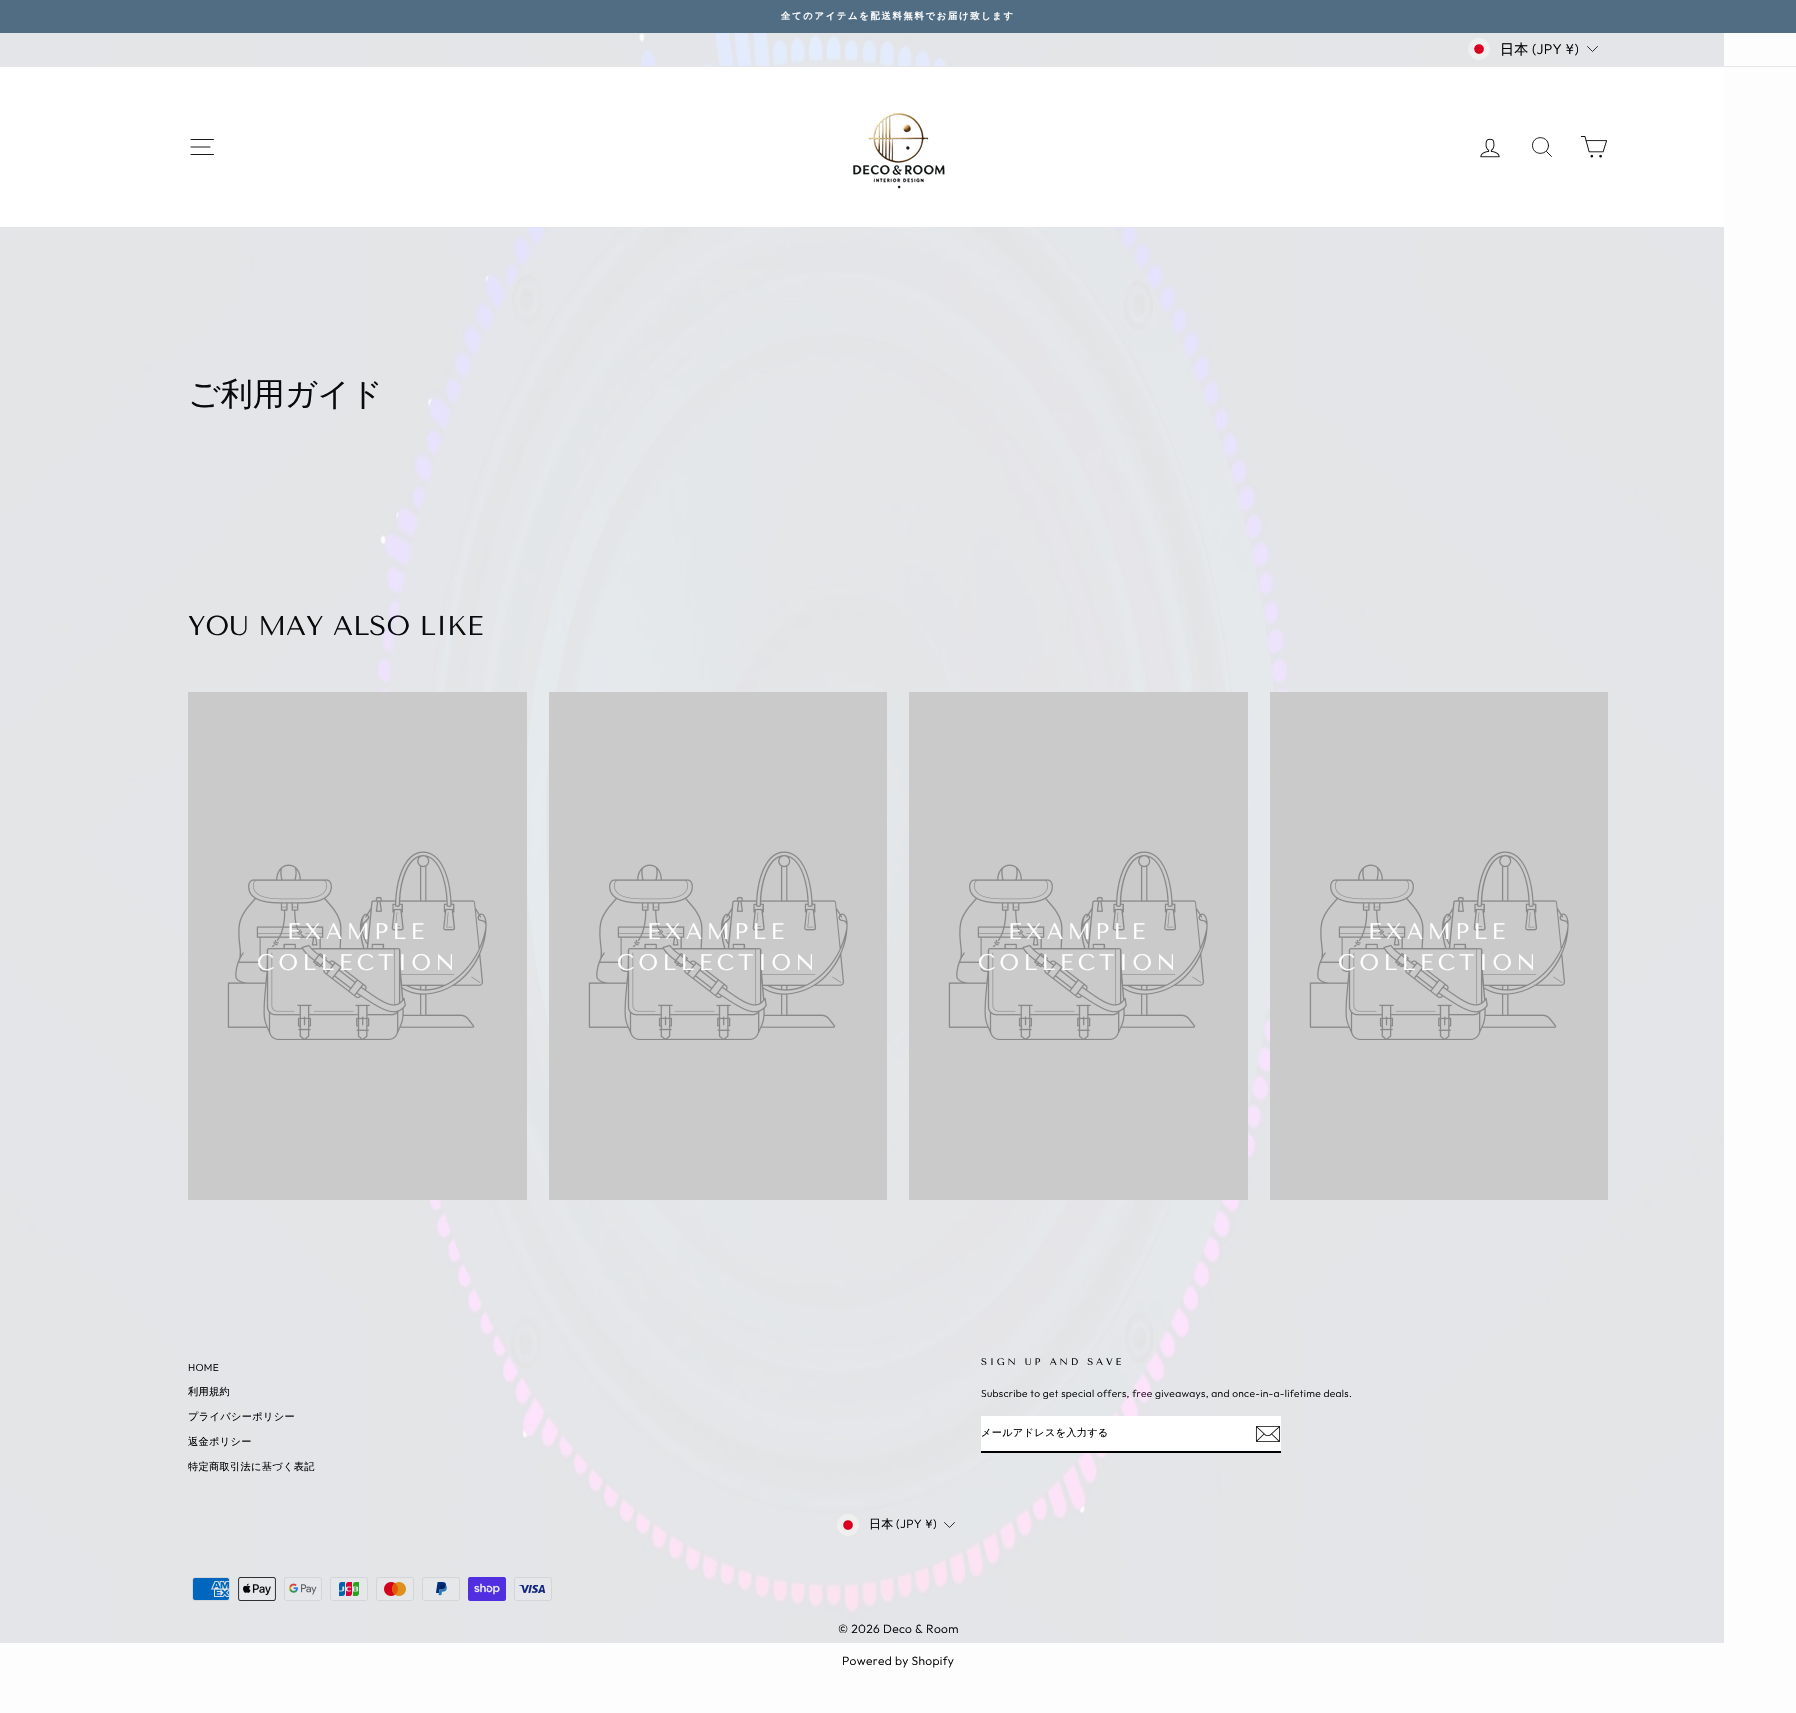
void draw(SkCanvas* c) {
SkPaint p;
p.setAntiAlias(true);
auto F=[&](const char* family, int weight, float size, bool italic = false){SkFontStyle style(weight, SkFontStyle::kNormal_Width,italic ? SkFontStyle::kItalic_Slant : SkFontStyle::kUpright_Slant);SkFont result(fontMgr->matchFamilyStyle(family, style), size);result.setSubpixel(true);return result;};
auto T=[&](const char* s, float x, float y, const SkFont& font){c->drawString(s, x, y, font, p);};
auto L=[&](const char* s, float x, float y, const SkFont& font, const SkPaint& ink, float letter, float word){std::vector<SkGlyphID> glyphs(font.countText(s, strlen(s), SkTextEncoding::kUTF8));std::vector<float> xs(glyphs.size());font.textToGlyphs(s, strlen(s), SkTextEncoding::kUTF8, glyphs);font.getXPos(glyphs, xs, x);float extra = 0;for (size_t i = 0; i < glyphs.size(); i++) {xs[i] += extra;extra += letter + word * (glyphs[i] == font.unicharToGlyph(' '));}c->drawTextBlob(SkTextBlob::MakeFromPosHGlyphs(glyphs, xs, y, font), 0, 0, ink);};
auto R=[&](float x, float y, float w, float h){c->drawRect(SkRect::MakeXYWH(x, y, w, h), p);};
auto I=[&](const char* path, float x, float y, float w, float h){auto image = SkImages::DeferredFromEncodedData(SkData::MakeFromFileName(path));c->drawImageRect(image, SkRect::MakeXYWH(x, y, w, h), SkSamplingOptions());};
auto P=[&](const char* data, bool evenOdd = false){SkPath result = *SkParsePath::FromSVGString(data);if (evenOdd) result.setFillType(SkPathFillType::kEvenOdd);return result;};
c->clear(0xfffdfdfd);
p.setColor(0xff506d84);
R(0,0,1796,33);
auto f1 = F("WenQuanYi Zen Hei",700,9.2);
p.setColor(0xffffffff);
L("全てのアイテムを配送料無料でお届け致します",781,19,f1,p,1.8,0);
auto f2 = F("WenQuanYi Zen Hei",500,32);
p.setColor(0xff080808);
T("ご利用ガイド",188,405,f2);
auto f3 = F("Tenor Sans",400,27.25);
T("YOU MAY ALSO LIKE",188,635,f3);
auto f4 = F("Outfit",300,10.2);
p.setColor(0xff000000);
L("HOME",188,1371,f4,p,.3,0);
auto f5 = F("WenQuanYi Zen Hei",500,10.2);
L("利用規約",188,1395,f5,p,.3,0);
L("プライバシーポリシー",188,1420,f5,p,.3,0);
L("返金ポリシー",188,1445,f5,p,.3,0);
L("特定商取引法に基づく表記",188,1470,f5,p,.3,0);
auto f6 = F("Tenor Sans",400,9.6);
L("SIGN UP AND SAVE",981,1365,f6,p,2.9,0);
L("Subscribe to get special offers, free giveaways, and once-in-a-lifetime deals.",981,1397,f4,p,.3,0);
I("8.png",192,1577,38,24);
I("9.png",238,1577,38,24);
I("10.png",284,1577,38,24);
I("11.png",330,1577,38,24);
I("12.png",376,1577,38,24);
I("13.png",422,1577,38,24);
I("14.png",468,1577,38,24);
I("15.png",514,1577,38,24);
auto f7 = F("Outfit",300,12);
L("© 2026 Deco & Room",838,1633,f7,p,.3,0);
I("16.png",0,33,1724,1610);
I("1.png",1468,38,22,22);
auto f8 = F("WenQuanYi Zen Hei",500,14);
L("日本",1500,54,f8,p,.25,0);
auto f9 = F("Outfit",300,14);
L("(JPY ¥)",1532,54,f9,p,.25,0);
p.setStroke(true);
p.setStrokeWidth(.8);
p.setStrokeCap(SkPaint::kRound_Cap);
p.setStrokeJoin(SkPaint::kRound_Join);
c->drawPath(P("M1587.5 46.5l5 5l5-5"),p);
p.setStroke(false);
p.setColor(0xffffffff);
R(0,67,1724,160);
p.setColor(0xffe6e6e6);
R(0,66,1796,1);
p.setStroke(true);
p.setStrokeWidth(.9);
p.setColor(0xff000000);
c->drawPath(P("M191 139.5h22.5m-22.5 7.5h19m-19 7.5h22.5"),p);
I("2.png",853,113,92,76);
I("3.png",1480,138,20,20);
c->drawPath(P("M1548.5 145.5c0 10.5-16 10.5-16 0c0-10.5 16-10.5 16 0zm3 11l-5-5"),p);
I("4.png",1580,136,27,22);
p.setStroke(false);
p.setColor(0xffe1e1e1);
R(188,692,339,508);
I("5.png",227,851,260,189);
p.setColor(0x1a000000);
R(188,692,339,508);
auto f10 = F("Tenor Sans",400,22.5);
p.setColor(0xffffffff);
L("EXAMPLE",287,939,f10,p,4.5,0);
L("COLLECTION",257,970,f10,p,4.5,0);
p.setColor(0xffe1e1e1);
R(549,692,338,508);
I("5.png",588,851,260,189);
p.setColor(0x1a000000);
R(549,692,338,508);
p.setColor(0xffffffff);
L("EXAMPLE",647,939,f10,p,4.5,0);
L("COLLECTION",617,970,f10,p,4.5,0);
p.setColor(0xffe1e1e1);
R(909,692,339,508);
I("5.png",948,851,260,189);
p.setColor(0x1a000000);
R(909,692,339,508);
p.setColor(0xffffffff);
L("EXAMPLE",1008,939,f10,p,4.5,0);
L("COLLECTION",978,970,f10,p,4.5,0);
p.setColor(0xffe1e1e1);
R(1270,692,338,508);
I("5.png",1309,851,260,189);
p.setColor(0x1a000000);
R(1270,692,338,508);
p.setColor(0xffffffff);
L("EXAMPLE",1368,939,f10,p,4.5,0);
L("COLLECTION",1338,970,f10,p,4.5,0);
R(981,1416,300,35);
p.setColor(0xff000000);
R(981,1451,300,2);
L("メールアドレスを入力する",981,1436,f5,p,.25,0);
I("6.png",1255,1426,26,16);
I("7.png",837,1514,22,22);
auto f11 = F("WenQuanYi Zen Hei",500,12);
L("日本",869,1528,f11,p,.3,0);
L("(JPY ¥)",896,1528,f7,p,.3,0);
p.setStroke(true);
p.setStrokeWidth(.8);
c->drawPath(P("M944.5 1522.5l5 5l5-5"),p);
p.setStroke(false);
L("Powered by Shopify",842,1665,f7,p,.3,0);
}
